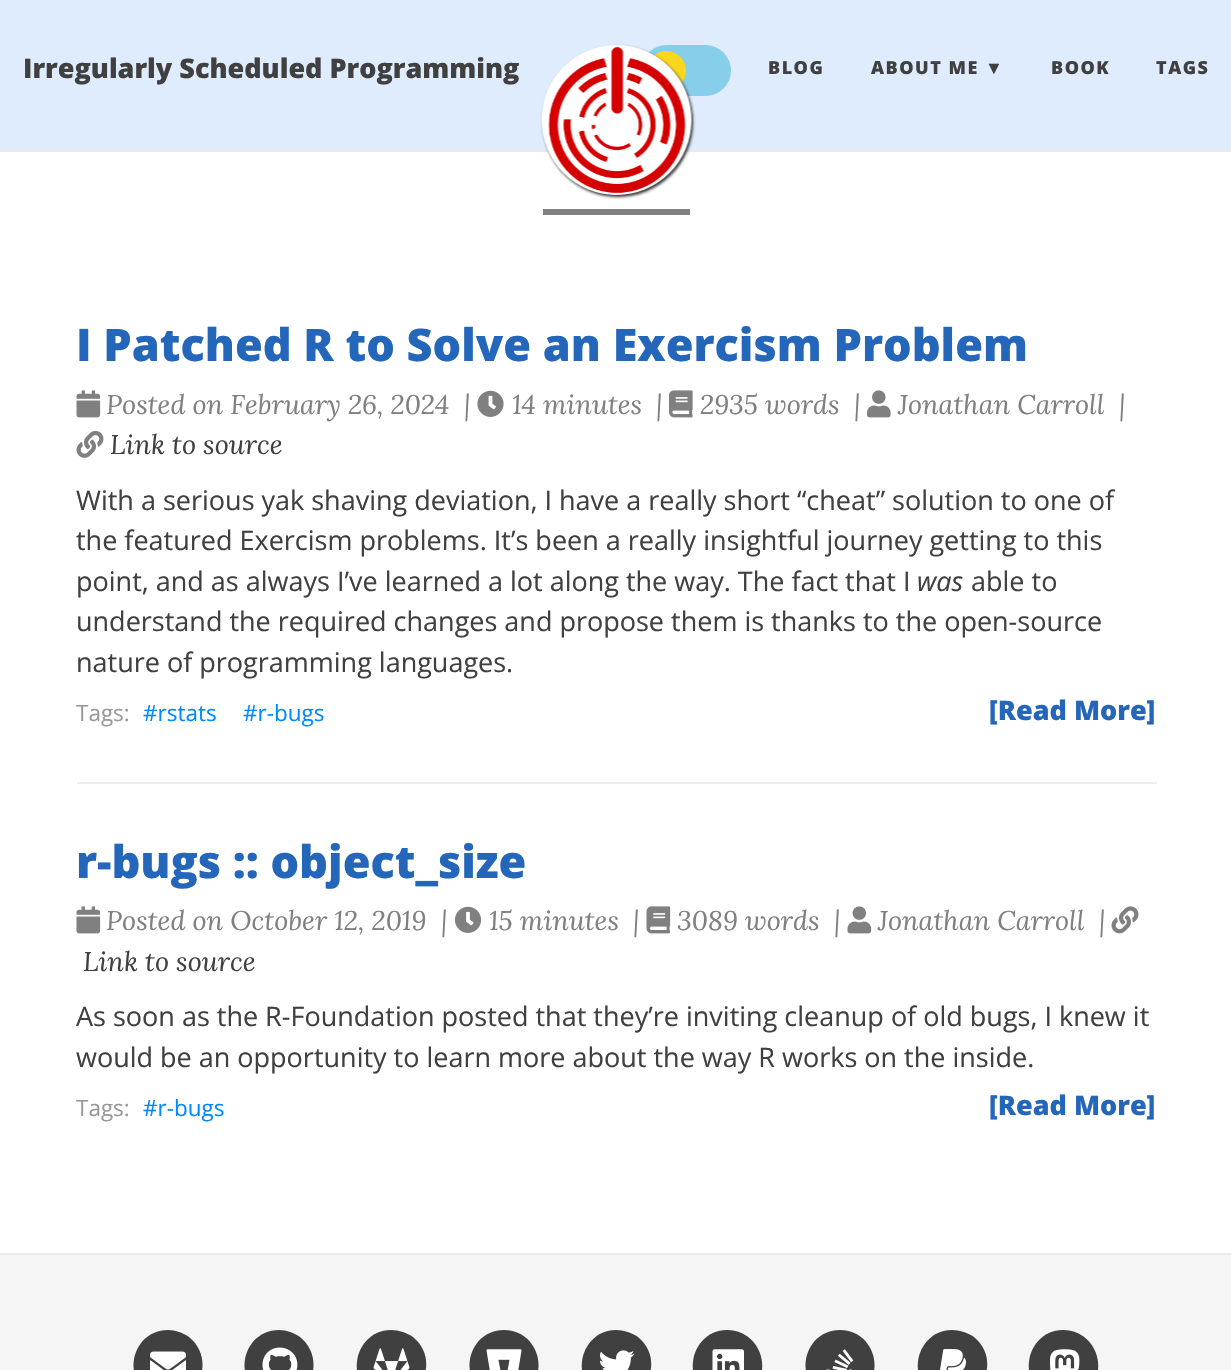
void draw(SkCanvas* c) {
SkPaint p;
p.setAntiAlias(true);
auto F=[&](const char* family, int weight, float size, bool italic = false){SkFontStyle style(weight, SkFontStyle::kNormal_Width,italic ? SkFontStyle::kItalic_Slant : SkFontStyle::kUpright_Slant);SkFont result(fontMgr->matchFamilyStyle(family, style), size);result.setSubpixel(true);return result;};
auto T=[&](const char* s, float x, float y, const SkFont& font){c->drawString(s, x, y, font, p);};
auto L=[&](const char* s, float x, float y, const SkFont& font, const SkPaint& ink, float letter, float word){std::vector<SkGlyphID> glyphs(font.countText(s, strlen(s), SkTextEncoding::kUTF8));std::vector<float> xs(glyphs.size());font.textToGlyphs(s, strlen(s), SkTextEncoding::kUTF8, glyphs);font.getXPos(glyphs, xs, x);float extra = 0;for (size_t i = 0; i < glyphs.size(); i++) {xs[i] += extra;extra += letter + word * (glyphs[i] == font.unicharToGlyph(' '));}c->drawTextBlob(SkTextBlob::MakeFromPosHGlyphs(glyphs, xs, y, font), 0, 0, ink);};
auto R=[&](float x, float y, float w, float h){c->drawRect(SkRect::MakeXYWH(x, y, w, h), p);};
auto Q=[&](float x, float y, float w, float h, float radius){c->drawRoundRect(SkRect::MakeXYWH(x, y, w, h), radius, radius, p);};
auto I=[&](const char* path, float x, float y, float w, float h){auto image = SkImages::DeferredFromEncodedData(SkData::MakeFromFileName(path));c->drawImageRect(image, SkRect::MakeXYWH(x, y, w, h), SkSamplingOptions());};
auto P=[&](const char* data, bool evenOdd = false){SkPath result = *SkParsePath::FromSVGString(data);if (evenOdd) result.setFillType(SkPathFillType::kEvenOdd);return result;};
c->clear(0xffffffff);
p.setColor(0xffdeecfe);
R(0,0,1231,150);
p.setColor(0xffeaeaea);
R(0,150,1231,2);
auto f1 = F("Open Sans",800,27);
p.setColor(0xff404040);
T("Irregularly Scheduled Programming",23,78,f1);
p.setColor(0xff87ceeb);
Q(641,45,90,51,25.5);
p.setColor(0xfff9d71c);
c->drawCircle(666.5,70.5,19.5,p);
p.setColor(0xcc000000);
p.setMaskFilter(SkMaskFilter::MakeBlur(kNormal_SkBlurStyle, 1.5));
c->drawRoundRect(SkRect::MakeXYWH(543,47,150,150),75,75,p);
p.setMaskFilter(nullptr);
I("1.png",541,45,151,150);
auto f2 = F("Open Sans",800,18);
p.setColor(0xff404040);
L("BLOG",768,74,f2,p,1.5,0);
L("ABOUT ME",871,74,f2,p,1.5,0);
auto f3 = F("Liberation Sans",700,18);
L("▼",985,74,f3,p,1.5,0);
L("BOOK",1051,74,f2,p,1.5,0);
L("TAGS",1156,74,f2,p,1.5,0);
p.setColor(0xff808080);
R(543,209,147,6);
p.setColor(0xffeeeeee);
R(77,782,1080,2);
auto f4 = F("Open Sans",800,45);
p.setColor(0xff2466b9);
T("I Patched R to Solve an Exercism Problem",76,361,f4);
I("2.png",76,390,25,28);
auto f5 = F("Lora",400,27,true);
p.setColor(0xff808080);
T("Posted on February 26, 2024",106,414,f5);
T("|",464,414,f5);
I("3.png",477,390,27,27);
T("14 minutes",512,414,f5);
T("|",656,414,f5);
I("4.png",669,390,24,28);
T("2935 words",700,414,f5);
T("|",854,414,f5);
I("5.png",867,390,24,28);
T("Jonathan Carroll",898,414,f5);
T("|",1119,414,f5);
I("6.png",76,430,28,28);
p.setColor(0xff404040);
T("Link to source",110,454,f5);
auto f6 = F("Open Sans",400,27);
T("With a serious yak shaving deviation, I have a really short “cheat” solution to one of",76,510,f6);
T("the featured Exercism problems. It’s been a really insightful journey getting to this",76,550,f6);
T("point, and as always I’ve learned a lot along the way. The fact that I",76,591,f6);
auto f7 = F("Open Sans",400,27,true);
T("was",917,591,f7);
T("able to",971,591,f6);
T("understand the required changes and propose them is thanks to the open-source",76,631,f6);
T("nature of programming languages.",76,672,f6);
p.setColor(0xff2466b9);
T("[Read More]",989,720,f1);
auto f8 = F("Open Sans",400,22.5);
p.setColor(0xff999999);
T("Tags:",76,721,f8);
p.setColor(0xff008aff);
T("#rstats",143,721,f8);
T("#r-bugs",243,721,f8);
p.setColor(0xff2466b9);
T("r-bugs :: object_size",76,878,f4);
I("2.png",76,906,25,28);
p.setColor(0xff808080);
T("Posted on October 12, 2019",106,930,f5);
T("|",441,930,f5);
I("7.png",454,906,28,27);
T("15 minutes",489,930,f5);
T("|",633,930,f5);
I("8.png",646,906,25,28);
T("3089 words",677,930,f5);
T("|",834,930,f5);
I("9.png",847,906,25,28);
T("Jonathan Carroll",878,930,f5);
T("|",1099,930,f5);
I("10.png",1111,906,28,28);
p.setColor(0xff404040);
T("Link to source",83,971,f5);
T("As soon as the R-Foundation posted that they’re inviting cleanup of old bugs, I knew it",76,1026,f6);
T("would be an opportunity to learn more about the way R works on the inside.",76,1067,f6);
p.setColor(0xff2466b9);
T("[Read More]",989,1115,f1);
p.setColor(0xff999999);
T("Tags:",76,1116,f8);
p.setColor(0xff008aff);
T("#r-bugs",143,1116,f8);
p.setColor(0xfff5f5f5);
R(0,1255,1231,115);
p.setColor(0xffeaeaea);
R(0,1253,1231,2);
p.setColor(0xff404040);
c->drawPath(P("M168 1330c-33 0-47 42-21 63c6 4 13 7 21 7c33 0 47-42 21-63c-6-4-13-7-21-7z"),p);
I("11.png",150,1351,36,19);
c->drawPath(P("M279 1330c-33 0-47 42-21 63c6 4 13 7 21 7c33 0 47-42 21-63c-6-4-13-7-21-7z"),p);
I("12.png",262,1347,36,23);
c->drawPath(P("M391 1330c-32 0-47 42-21 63c6 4 14 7 21 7c33 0 48-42 22-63c-6-4-14-7-22-7z"),p);
I("13.png",373,1348,37,22);
c->drawPath(P("M504 1330c-33 0-47 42-21 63c6 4 13 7 21 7c8 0 15-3 21-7c26-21 12-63-21-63z"),p);
I("14.png",486,1349,36,21);
c->drawPath(P("M616 1330c-32 0-47 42-21 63c6 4 14 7 21 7c33 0 48-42 22-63c-6-4-14-7-22-7z"),p);
I("15.png",600,1350,35,20);
c->drawPath(P("M727 1330c-32 0-47 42-21 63c6 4 14 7 21 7c8 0 16-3 22-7c26-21 11-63-22-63z"),p);
I("16.png",712,1349,32,21);
c->drawPath(P("M840 1330c-33 0-47 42-21 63c6 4 13 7 21 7c8 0 15-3 21-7c26-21 12-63-21-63z"),p);
I("17.png",826,1349,28,21);
c->drawPath(P("M952 1330c-32 0-47 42-21 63c6 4 14 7 21 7c33 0 48-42 22-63c-6-4-14-7-22-7z"),p);
I("18.png",940,1349,26,21);
c->drawPath(P("M1063 1330c-32 0-47 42-21 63c6 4 14 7 21 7c8 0 16-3 22-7c26-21 11-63-22-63z"),p);
I("19.png",1050,1349,30,21);
}
